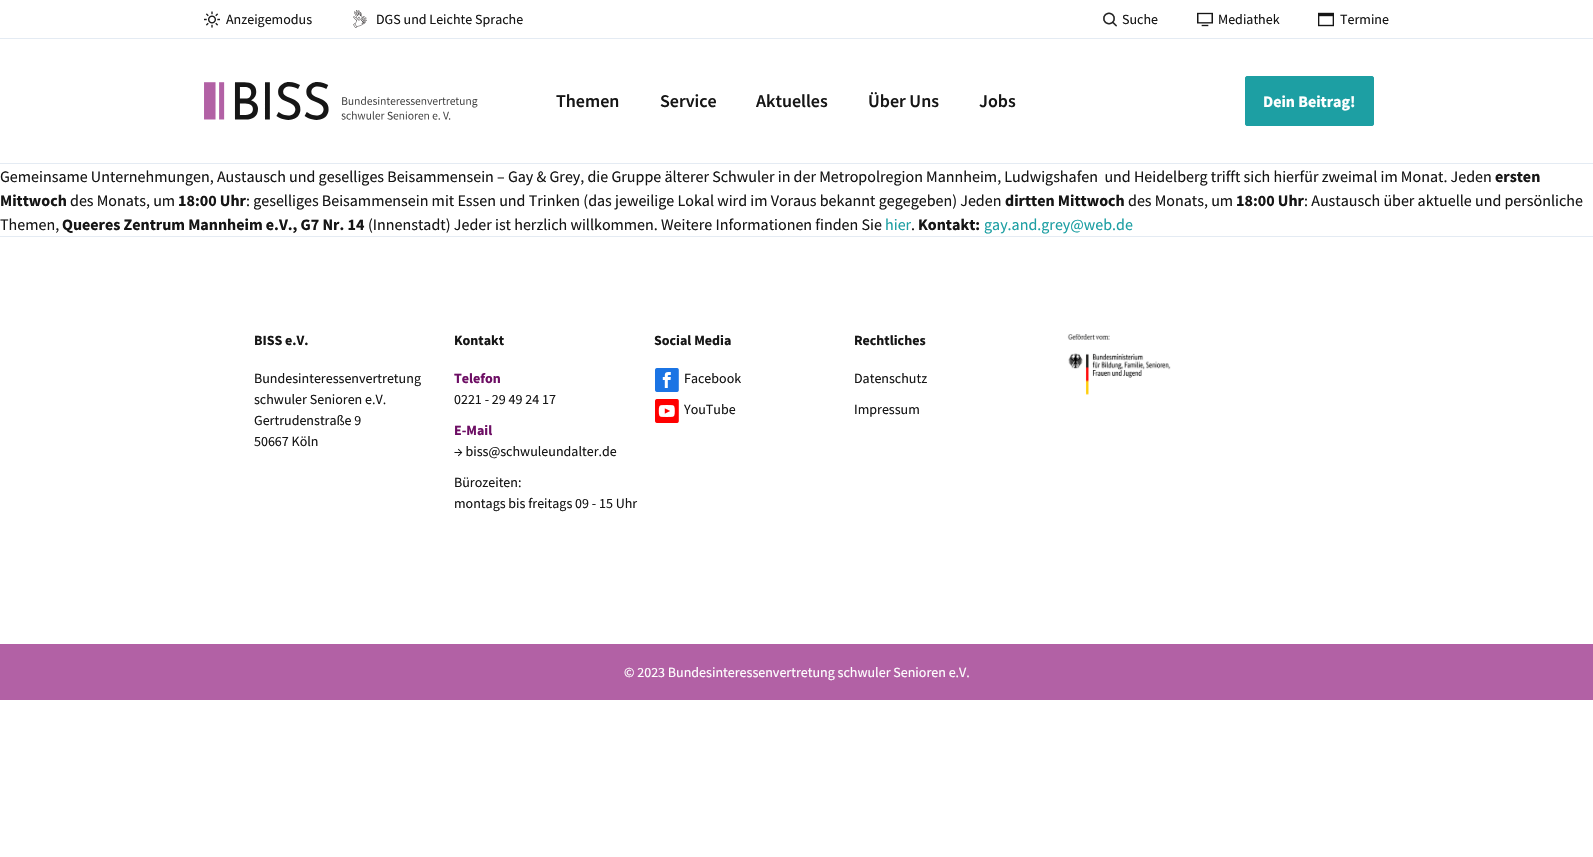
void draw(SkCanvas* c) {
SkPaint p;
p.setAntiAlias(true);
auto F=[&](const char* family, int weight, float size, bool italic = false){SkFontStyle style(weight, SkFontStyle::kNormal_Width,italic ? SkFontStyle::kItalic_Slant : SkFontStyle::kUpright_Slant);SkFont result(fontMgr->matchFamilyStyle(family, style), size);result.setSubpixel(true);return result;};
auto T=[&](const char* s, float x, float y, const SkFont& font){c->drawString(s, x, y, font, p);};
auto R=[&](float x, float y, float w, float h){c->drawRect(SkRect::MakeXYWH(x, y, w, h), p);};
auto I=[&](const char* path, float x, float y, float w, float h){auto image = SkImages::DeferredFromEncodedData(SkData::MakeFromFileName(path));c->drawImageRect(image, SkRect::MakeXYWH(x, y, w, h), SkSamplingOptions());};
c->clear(0xffffffff);
p.setColor(0xffe4ebf3);
R(0,38,1593,1);
I("1.png",204,11,16,17);
auto f1 = F("Source Sans Pro",400,14);
p.setColor(0xff161616);
T("Anzeigemodus",226,24,f1);
I("2.png",353,10,14,18);
T("DGS und Leichte Sprache",376,24,f1);
I("3.png",1103,12,14,15);
T("Suche",1122,24,f1);
I("4.png",1197,12,16,15);
T("Mediathek",1218,24,f1);
I("5.png",1318,12,16,15);
T("Termine",1340,24,f1);
p.setColor(0xffe4ebf3);
R(0,163,1593,1);
I("6.png",204,82,274,38);
auto f2 = F("Source Sans Pro",600,18);
p.setColor(0xff161616);
T("Themen",556,107,f2);
T("Service",660,107,f2);
T("Aktuelles",756,107,f2);
T("Über Uns",868,107,f2);
T("Jobs",979,107,f2);
p.setColor(0xff1d9fa3);
c->drawRoundRect(SkRect::MakeXYWH(1245.5,76.5,128,49),1.5,1.5,p);
p.setStroke(true);
p.setStrokeWidth(1);
c->drawRoundRect(SkRect::MakeXYWH(1245.5,76.5,128,49),1.5,1.5,p);
auto f3 = F("Source Sans Pro",700,16);
p.setStroke(false);
p.setColor(0xffffffff);
T("Dein Beitrag!",1263,107,f3);
auto f4 = F("Source Sans Pro",400,16);
p.setColor(0xff161616);
T("Gemeinsame Unternehmungen, Austausch und geselliges Beisammensein – Gay & Grey, die Gruppe älterer Schwuler in der Metropolregion Mannheim, Ludwigshafen  und Heidelberg trifft sich hierfür zweimal im Monat. Jeden",0,182,f4);
T("ersten",1495,182,f3);
T("Mittwoch",0,206,f3);
T("des Monats, um",70,206,f4);
T("18:00 Uhr",178,206,f3);
T(": geselliges Beisammensein mit Essen und Trinken (das jeweilige Lokal wird im Voraus bekannt gegegeben) Jeden",246,206,f4);
T("dirtten Mittwoch",1005,206,f3);
T("des Monats, um",1128,206,f4);
T("18:00 Uhr",1236,206,f3);
T(": Austausch über aktuelle und persönliche",1304,206,f4);
T("Themen,",0,230,f4);
T("Queeres Zentrum Mannheim e.V., G7 Nr. 14",62,230,f3);
T("(Innenstadt) Jeder ist herzlich willkommen. Weitere Informationen finden Sie",368,230,f4);
p.setColor(0xff1d9fa3);
T("hier",885,230,f4);
p.setColor(0xff161616);
T(".",911,230,f4);
T("Kontakt:",918,230,f3);
p.setColor(0xff1d9fa3);
T("gay.and.grey@web.de",984,230,f4);
p.setColor(0xffe4ebf3);
R(0,236,1593,1);
auto f5 = F("Source Sans Pro",700,14);
p.setColor(0xff161616);
T("BISS e.V.",254,345,f5);
T("Bundesinteressenvertretung",254,383,f1);
T("schwuler Senioren e.V.",254,404,f1);
T("Gertrudenstraße 9",254,425,f1);
T("50667 Köln",254,446,f1);
T("Kontakt",454,345,f5);
p.setColor(0xff6d0e64);
T("Telefon",454,383,f5);
p.setColor(0xff161616);
T("0221 - 29 49 24 17",454,404,f1);
p.setColor(0xff6d0e64);
T("E-Mail",454,435,f5);
p.setColor(0xff161616);
T("→ biss@schwuleundalter.de",454,456,f1);
T("Bürozeiten:",454,487,f1);
T("montags bis freitags 09 - 15 Uhr",454,508,f1);
T("Social Media",654,345,f5);
I("7.png",655,368,24,24);
T("Facebook",684,383,f1);
I("8.png",655,399,24,24);
T("YouTube",684,414,f1);
T("Rechtliches",854,345,f5);
T("Datenschutz",854,383,f1);
T("Impressum",854,414,f1);
I("9.png",1067,334,104,61);
p.setColor(0xffb261a5);
R(0,644,1593,56);
p.setColor(0xffffffff);
T("© 2023 Bundesinteressenvertretung schwuler Senioren e.V.",624,677,f1);
}
